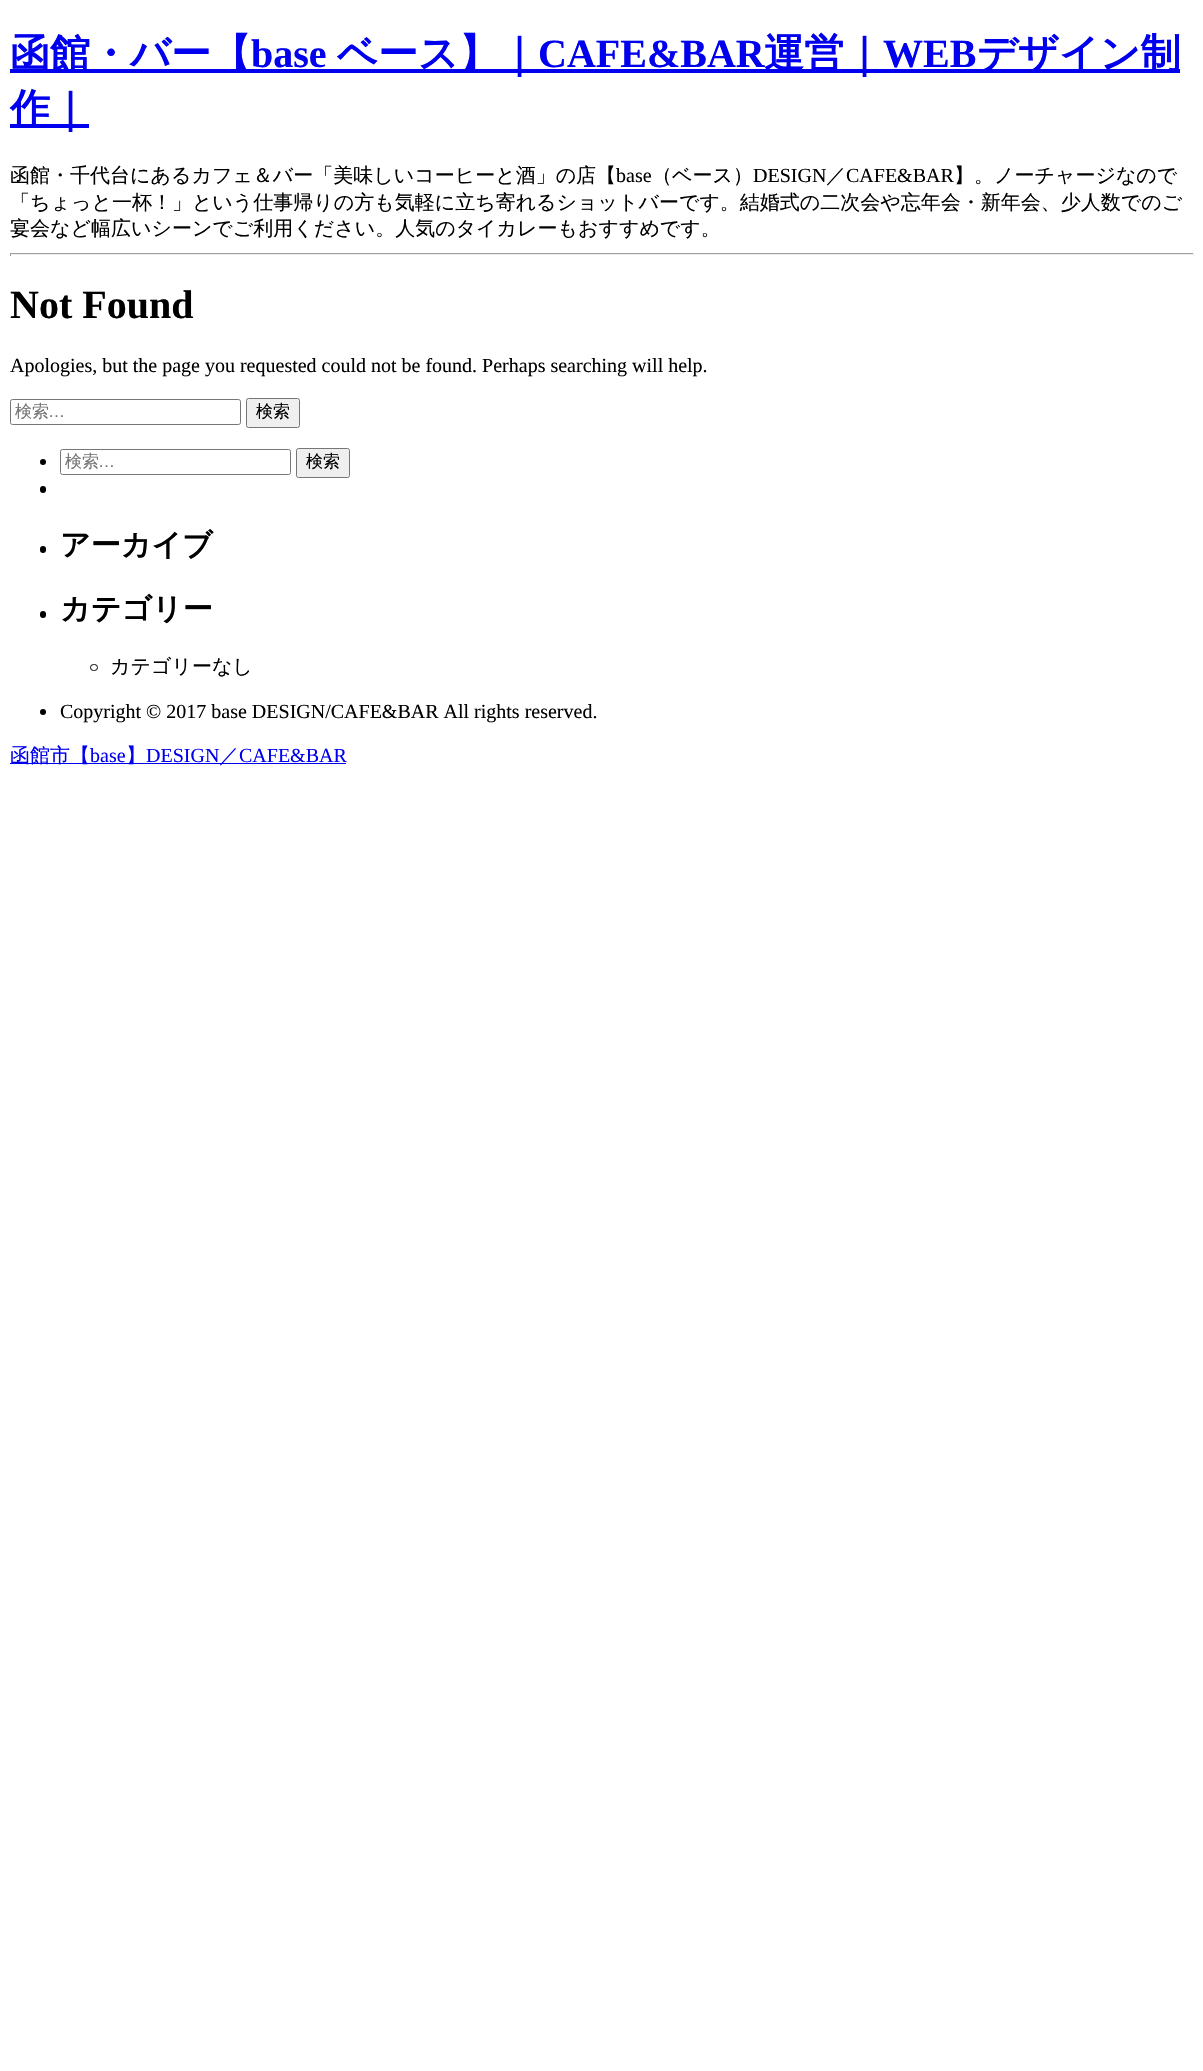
void draw(SkCanvas* c) {
SkPaint p;
p.setAntiAlias(true);
auto F=[&](const char* family, int weight, float size, bool italic = false){SkFontStyle style(weight, SkFontStyle::kNormal_Width,italic ? SkFontStyle::kItalic_Slant : SkFontStyle::kUpright_Slant);SkFont result(fontMgr->matchFamilyStyle(family, style), size);result.setSubpixel(true);return result;};
auto T=[&](const char* s, float x, float y, const SkFont& font){c->drawString(s, x, y, font, p);};
auto R=[&](float x, float y, float w, float h){c->drawRect(SkRect::MakeXYWH(x, y, w, h), p);};
auto Q=[&](float x, float y, float w, float h, float radius){c->drawRoundRect(SkRect::MakeXYWH(x, y, w, h), radius, radius, p);};
c->clear(0xffffffff);
p.setColor(0xff0000ee);
R(10,69,1170,4);
auto f1 = F("WenQuanYi Zen Hei",700,40);
T("函館・バー【",10,67,f1);
auto f2 = F("Liberation Serif",700,40);
T("base",251,67,f2);
T("ベース】｜",337,67,f1);
T("CAFE&BAR",538,67,f2);
T("運営｜",764,67,f1);
T("WEB",883,67,f2);
T("デザイン制",977,67,f1);
R(10,124,79,4);
T("作｜",10,122,f1);
auto f3 = F("WenQuanYi Zen Hei",500,20);
p.setColor(0xff000000);
T("函館・千代台にあるカフェ＆バー「美味しいコーヒーと酒」の店【",10,182,f3);
auto f4 = F("Liberation Serif",400,20);
T("base",616,182,f4);
T("（ベース）",652,182,f3);
T("DESIGN",753,182,f4);
T("／",826,182,f3);
T("CAFE&BAR",846,182,f4);
T("】。ノーチャージなので",954,182,f3);
T("「ちょっと一杯！」という仕事帰りの方も気軽に立ち寄れるショットバーです。結婚式の二次会や忘年会・新年会、少人数でのご",10,209,f3);
T("宴会など幅広いシーンでご利用ください。人気のタイカレーもおすすめです。",10,235,f3);
p.setColor(0xff9f9f9f);
R(10,253,1184,1);
p.setColor(0xffeeeeee);
R(1193,253,1,3);
R(10,254,1184,1);
p.setColor(0xff9f9f9f);
R(10,253,1,3);
p.setColor(0xff000000);
T("Not Found",10,318,f2);
T("Apologies, but the page you requested could not be found. Perhaps searching will help.",10,372,f4);
p.setStroke(true);
p.setStrokeWidth(1);
p.setColor(0xff767676);
c->drawRoundRect(SkRect::MakeXYWH(10.5,399.5,230,25),2,2,p);
auto f5 = F("WenQuanYi Zen Hei",500,17);
p.setStroke(false);
p.setColor(0xff757575);
T("検索",15,417,f5);
auto f6 = F("Liberation Sans",400,17);
T("…",48,417,f6);
p.setColor(0xffefefef);
c->drawRoundRect(SkRect::MakeXYWH(246.5,398.5,53,29),2,2,p);
p.setStroke(true);
p.setColor(0xff767676);
c->drawRoundRect(SkRect::MakeXYWH(246.5,398.5,53,29),2,2,p);
p.setStroke(false);
p.setColor(0xff000000);
T("検索",256,417,f5);
c->drawCircle(43,462,3,p);
p.setStroke(true);
p.setColor(0xff767676);
c->drawRoundRect(SkRect::MakeXYWH(60.5,449.5,230,25),2,2,p);
p.setStroke(false);
p.setColor(0xff757575);
T("検索",65,467,f5);
T("…",98,467,f6);
p.setColor(0xffefefef);
c->drawRoundRect(SkRect::MakeXYWH(296.5,448.5,53,29),2,2,p);
p.setStroke(true);
p.setColor(0xff767676);
c->drawRoundRect(SkRect::MakeXYWH(296.5,448.5,53,29),2,2,p);
p.setStroke(false);
p.setColor(0xff000000);
T("検索",306,467,f5);
Q(40,486,6,7,3);
Q(40,546,6,7,3);
auto f7 = F("WenQuanYi Zen Hei",700,30);
T("アーカイブ",60,555,f7);
Q(40,611,6,7,3);
T("カテゴリー",60,619,f7);
p.setStroke(true);
c->drawRoundRect(SkRect::MakeXYWH(90.5,664.5,7,6),3,3,p);
p.setStroke(false);
T("カテゴリーなし",110,673,f3);
c->drawCircle(43,712,3,p);
T("Copyright © 2017 base DESIGN/CAFE&BAR All rights reserved.",60,718,f4);
p.setColor(0xff0000ee);
R(10,763,336,1);
T("函館市【",10,762,f3);
T("base",90,762,f4);
T("】",126,762,f3);
T("DESIGN",146,762,f4);
T("／",219,762,f3);
T("CAFE&BAR",239,762,f4);
}
